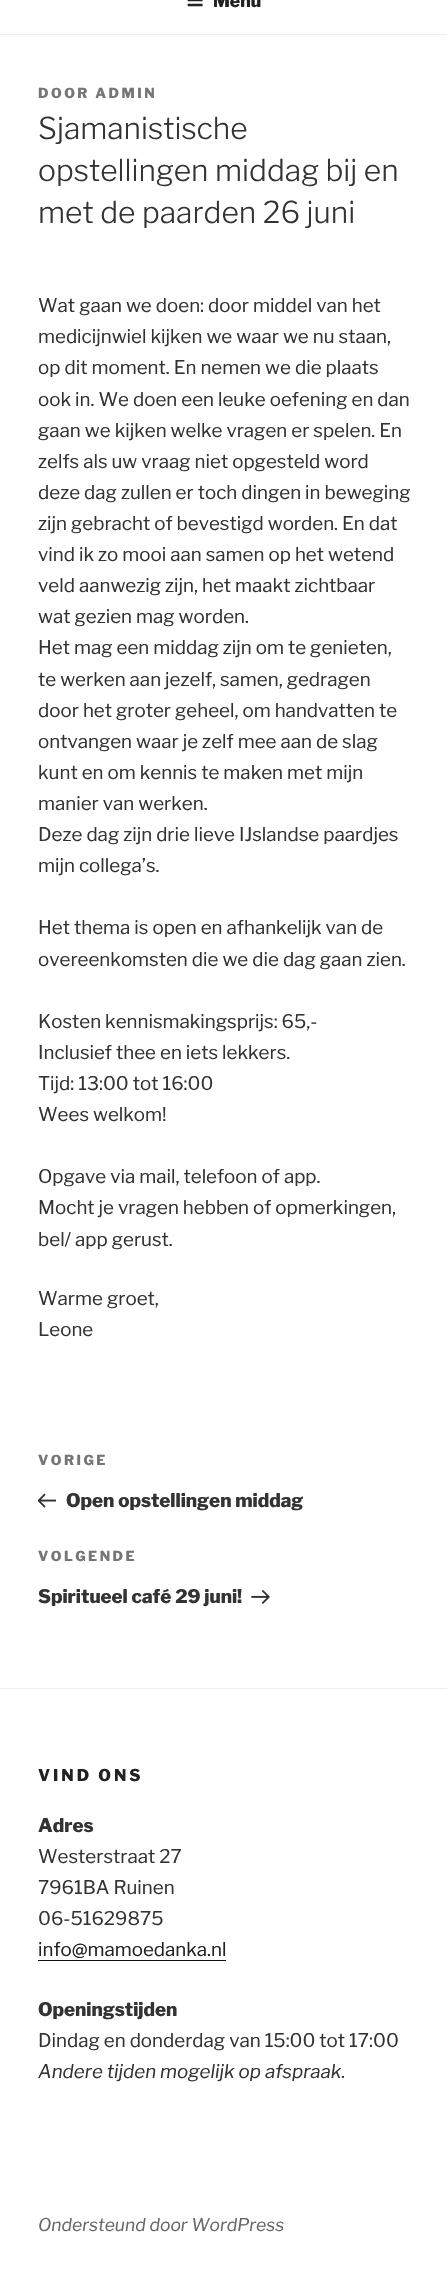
void draw(SkCanvas* c) {
SkPaint p;
p.setAntiAlias(true);
auto F=[&](const char* family, int weight, float size, bool italic = false){SkFontStyle style(weight, SkFontStyle::kNormal_Width,italic ? SkFontStyle::kItalic_Slant : SkFontStyle::kUpright_Slant);SkFont result(fontMgr->matchFamilyStyle(family, style), size);result.setSubpixel(true);return result;};
auto T=[&](const char* s, float x, float y, const SkFont& font){c->drawString(s, x, y, font, p);};
auto L=[&](const char* s, float x, float y, const SkFont& font, const SkPaint& ink, float letter, float word){std::vector<SkGlyphID> glyphs(font.countText(s, strlen(s), SkTextEncoding::kUTF8));std::vector<float> xs(glyphs.size());font.textToGlyphs(s, strlen(s), SkTextEncoding::kUTF8, glyphs);font.getXPos(glyphs, xs, x);float extra = 0;for (size_t i = 0; i < glyphs.size(); i++) {xs[i] += extra;extra += letter + word * (glyphs[i] == font.unicharToGlyph(' '));}c->drawTextBlob(SkTextBlob::MakeFromPosHGlyphs(glyphs, xs, y, font), 0, 0, ink);};
auto R=[&](float x, float y, float w, float h){c->drawRect(SkRect::MakeXYWH(x, y, w, h), p);};
auto I=[&](const char* path, float x, float y, float w, float h){auto image = SkImages::DeferredFromEncodedData(SkData::MakeFromFileName(path));c->drawImageRect(image, SkRect::MakeXYWH(x, y, w, h), SkSamplingOptions());};
c->clear(0xffffffff);
p.setColor(0xffeeeeee);
R(0,34,447,1);
I("1.png",187,0,16,7);
auto f1 = F("Libre Franklin",800,17.5);
p.setColor(0xff222222);
T("Menu",213,7,f1);
auto f2 = F("Libre Franklin",800,13.75);
p.setColor(0xff767676);
L("DOOR ADMIN",38,98,f2,p,2.5,0);
auto f3 = F("Libre Franklin",300,30);
p.setColor(0xff333333);
T("Sjamanistische",38,139,f3);
T("opstellingen middag bij en",38,181,f3);
T("met de paarden 26 juni",38,223,f3);
auto f4 = F("Libre Franklin",400,18.75);
T("Wat gaan we doen: door middel van het",38,312,f4);
T("medicijnwiel kijken we waar we nu staan,",38,343,f4);
T("op dit moment. En nemen we die plaats",38,374,f4);
T("ook in. We doen een leuke oefening en dan",38,406,f4);
T("gaan we kijken welke vragen er spelen. En",38,437,f4);
T("zelfs als uw vraag niet opgesteld word",38,468,f4);
T("deze dag zullen er toch dingen in beweging",38,499,f4);
T("zijn gebracht of bevestigd worden. En dat",38,530,f4);
T("vind ik zo mooi aan samen op het wetend",38,561,f4);
T("veld aanwezig zijn, het maakt zichtbaar",38,592,f4);
T("wat gezien mag worden.",38,623,f4);
T("Het mag een middag zijn om te genieten,",38,654,f4);
T("te werken aan jezelf, samen, gedragen",38,686,f4);
T("door het groter geheel, om handvatten te",38,717,f4);
T("ontvangen waar je zelf mee aan de slag",38,748,f4);
T("kunt en om kennis te maken met mijn",38,779,f4);
T("manier van werken.",38,810,f4);
T("Deze dag zijn drie lieve IJslandse paardjes",38,841,f4);
T("mijn collega’s.",38,872,f4);
T("Het thema is open en afhankelijk van de",38,934,f4);
T("overeenkomsten die we die dag gaan zien.",38,966,f4);
T("Kosten kennismakingsprijs: 65,-",38,1028,f4);
T("Inclusief thee en iets lekkers.",38,1059,f4);
T("Tijd: 13:00 tot 16:00",38,1090,f4);
T("Wees welkom!",38,1121,f4);
T("Opgave via mail, telefoon of app.",38,1183,f4);
T("Mocht je vragen hebben of opmerkingen,",38,1214,f4);
T("bel/ app gerust.",38,1246,f4);
T("Warme groet,",38,1305,f4);
T("Leone",38,1336,f4);
p.setColor(0xff767676);
L("VORIGE",38,1465,f2,p,2.5,0);
I("2.png",38,1493,18,15);
auto f5 = F("Libre Franklin",800,18.75);
p.setColor(0xff333333);
T("Open opstellingen middag",66,1507,f5);
p.setColor(0xff767676);
L("VOLGENDE",38,1561,f2,p,2.5,0);
p.setColor(0xff333333);
T("Spiritueel café 29 juni!",38,1603,f5);
I("3.png",251,1590,19,14);
p.setColor(0xffeeeeee);
R(0,1688,447,1);
auto f6 = F("Libre Franklin",800,16.25);
p.setColor(0xff222222);
L("VIND ONS",38,1781,f6,p,3,0);
p.setColor(0xff333333);
T("Adres",38,1832,f5);
T("Westerstraat 27",38,1863,f4);
T("7961BA Ruinen",38,1894,f4);
T("06-51629875",38,1925,f4);
p.setColor(0xff222222);
T("info@mamoedanka.nl",38,1956,f4);
p.setColor(0xff0f0f0f);
R(38,1960,188,1);
p.setColor(0xff333333);
T("Openingstijden",38,2016,f5);
T("Dindag en donderdag van 15:00 tot 17:00",38,2047,f4);
auto f7 = F("Libre Franklin",400,18.75,true);
T("Andere tijden mogelijk op afspraak.",38,2078,f7);
auto f8 = F("Libre Franklin",400,17.5,true);
p.setColor(0xff666666);
T("Ondersteund door WordPress",38,2231,f8);
}
